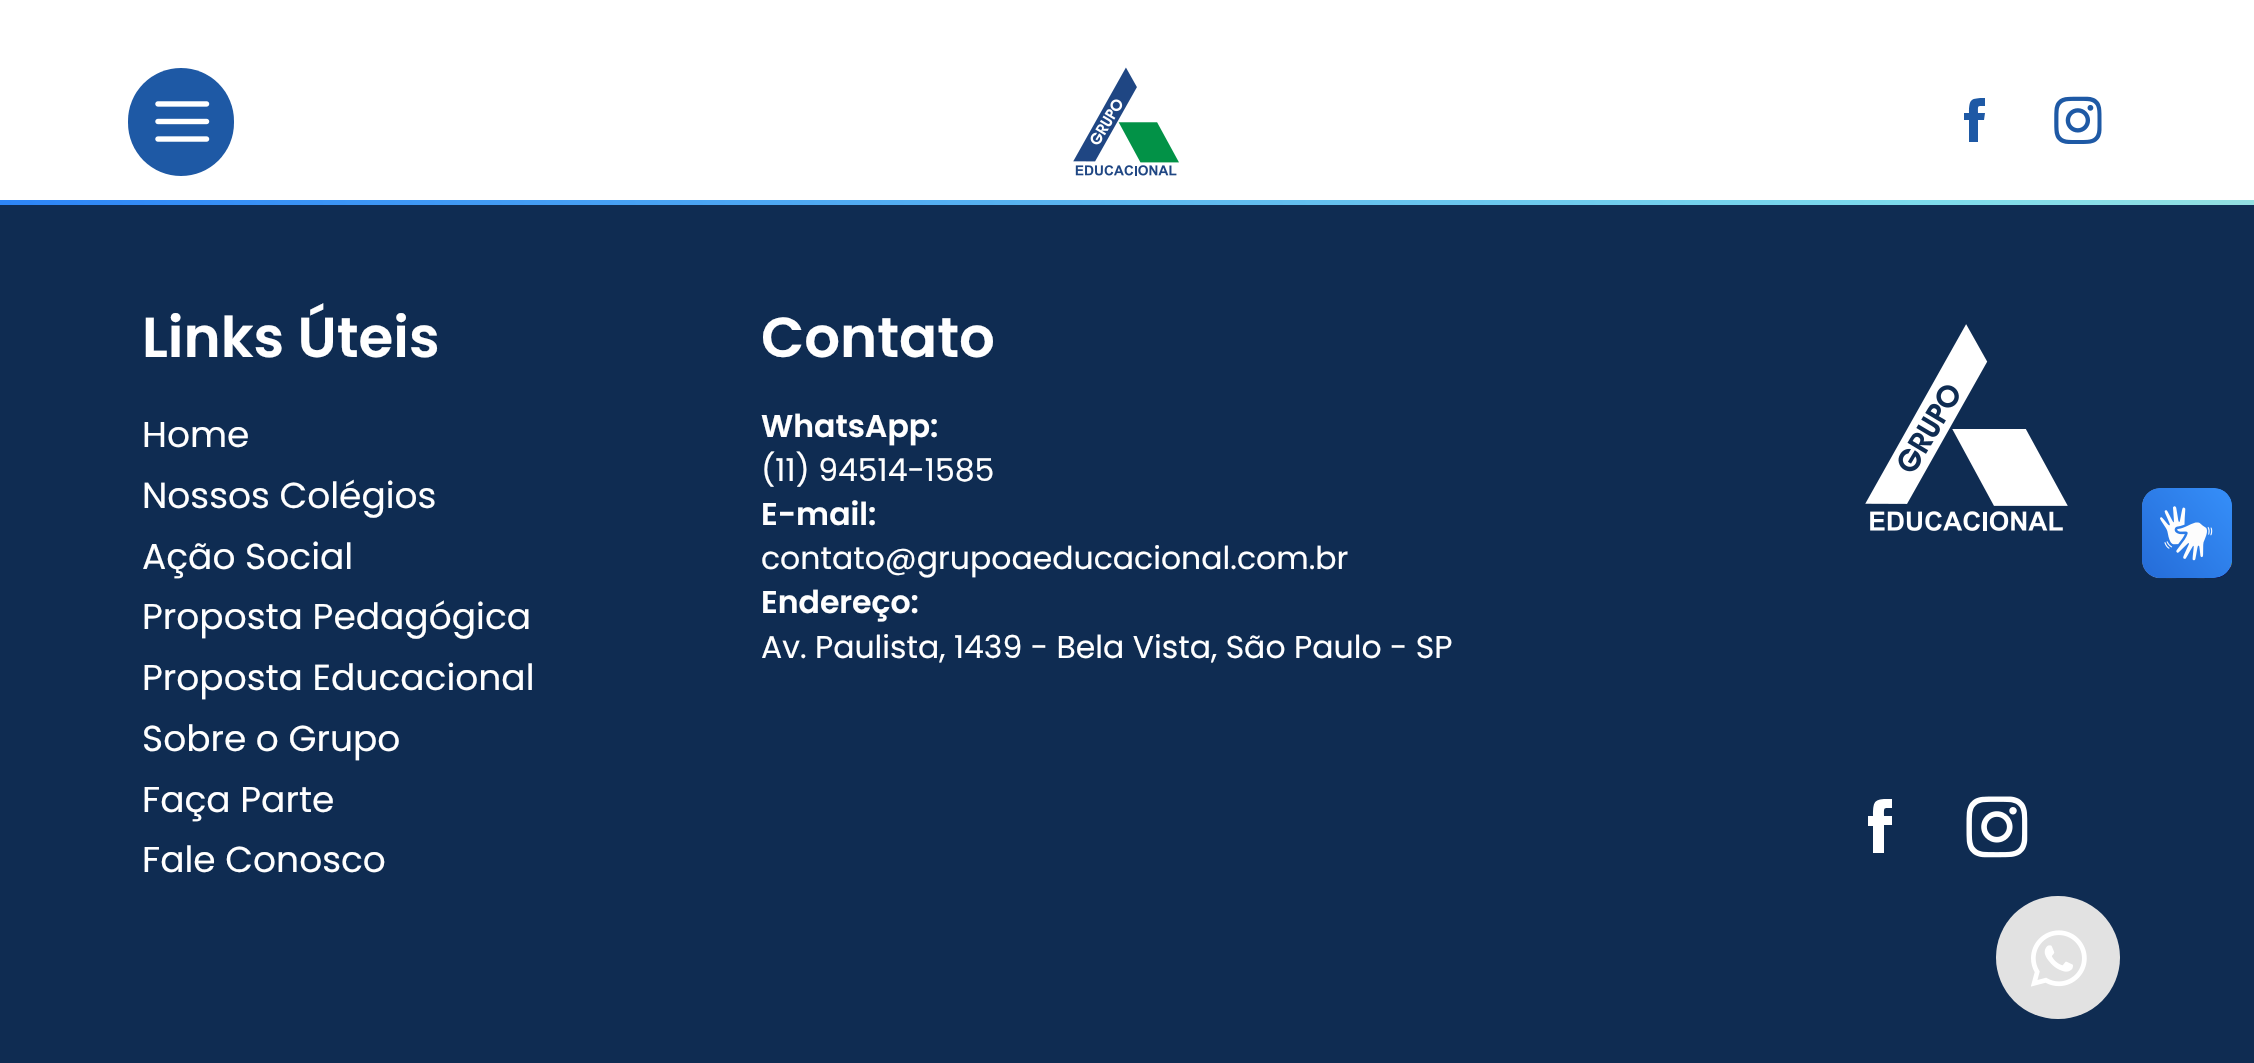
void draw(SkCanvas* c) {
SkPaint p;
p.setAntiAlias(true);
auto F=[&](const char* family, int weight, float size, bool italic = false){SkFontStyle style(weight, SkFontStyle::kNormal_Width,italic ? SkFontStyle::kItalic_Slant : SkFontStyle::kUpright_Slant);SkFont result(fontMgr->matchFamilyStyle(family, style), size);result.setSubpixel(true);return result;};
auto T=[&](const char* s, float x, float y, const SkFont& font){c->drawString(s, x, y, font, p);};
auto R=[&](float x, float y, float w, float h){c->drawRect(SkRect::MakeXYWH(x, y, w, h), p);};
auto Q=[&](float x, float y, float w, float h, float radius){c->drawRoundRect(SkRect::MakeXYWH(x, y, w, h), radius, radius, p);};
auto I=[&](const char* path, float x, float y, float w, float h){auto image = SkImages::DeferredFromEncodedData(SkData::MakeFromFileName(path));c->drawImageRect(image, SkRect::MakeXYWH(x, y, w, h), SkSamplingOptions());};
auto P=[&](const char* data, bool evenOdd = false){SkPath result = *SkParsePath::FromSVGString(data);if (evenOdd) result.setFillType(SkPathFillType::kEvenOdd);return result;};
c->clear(0xffffffff);
p.setColor(0xff1e59a5);
Q(128,68,106,108,53);
I("1.png",155,101,55,41);
I("2.png",1073,67,106,109);
c->drawPath(P("M1969 142h9v-22h6l1-7h-7c0-8-1-7 7-7v-8c-14 0-16 1-16 15h-5v7h5z"),p);
I("3.png",2054,96,48,48);
{
const SkColor colors[] = {0xff2d85f7,0xff7edcec,0xffa8e3d7};
const float stops[] = {0,.76,1};
const SkPoint ends[] = {{-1.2,201}, {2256,-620}};
p.setShader(SkGradientShader::MakeLinear(ends, colors, stops, 3, SkTileMode::kClamp));
p.setAlpha(255);
}
R(0,200,2254,5);
p.setShader(nullptr);
p.setColor(0xff0f2c52);
R(0,205,2254,858);
auto f1 = F("Poppins",600,56.25);
p.setColor(0xffffffff);
T("Links Úteis",142,357,f1);
T("Contato",761,357,f1);
auto f2 = F("Poppins",600,31.5);
T("WhatsApp:",761,437,f2);
auto f3 = F("Poppins",400,31.5);
T("(11) 94514-1585",761,481,f3);
T("E-mail:",761,525,f2);
T("contato@grupoaeducacional.com.br",761,569,f3);
T("Endereço:",761,613,f2);
T("Av. Paulista, 1439 - Bela Vista, São Paulo - SP",761,658,f3);
I("4.png",1865,324,203,207);
auto f4 = F("Poppins",400,36);
T("Home",142,447,f4);
T("Nossos Colégios",142,508,f4);
T("Ação Social",142,569,f4);
T("Proposta Pedagógica",142,629,f4);
T("Proposta Educacional",142,690,f4);
T("Sobre o Grupo",142,751,f4);
T("Faça Parte",142,812,f4);
T("Fale Conosco",142,872,f4);
c->drawPath(P("M1873 853h11v-28h8v-9h-8c0-9-1-8 8-8v-9c-17 0-19 0-19 17h-5v10h5z"),p);
I("5.png",1966,796,62,62);
p.setColor(0xffe2e2e2);
Q(1996,896,124,123,61.5);
I("6.png",2031,930,56,57);
I("7.png",2142,488,90,91);
I("8.png",2142,488,90,90);
}
